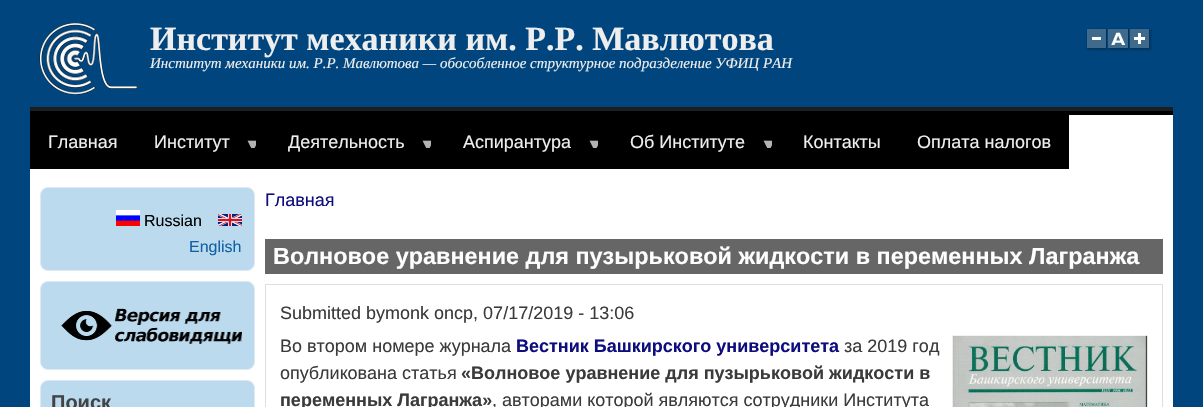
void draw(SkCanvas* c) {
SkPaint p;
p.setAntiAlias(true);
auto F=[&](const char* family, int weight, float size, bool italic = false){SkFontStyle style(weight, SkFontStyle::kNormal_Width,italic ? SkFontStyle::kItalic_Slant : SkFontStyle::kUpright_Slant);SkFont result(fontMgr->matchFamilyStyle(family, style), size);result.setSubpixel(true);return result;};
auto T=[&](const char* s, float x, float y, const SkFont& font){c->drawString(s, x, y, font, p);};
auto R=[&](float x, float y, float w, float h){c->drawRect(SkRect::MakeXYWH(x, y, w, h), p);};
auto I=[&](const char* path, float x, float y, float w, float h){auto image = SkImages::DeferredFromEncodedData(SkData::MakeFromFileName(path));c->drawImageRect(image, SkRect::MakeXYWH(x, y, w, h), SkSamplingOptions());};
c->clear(0xff00457d);
p.setColor(0xffffffff);
R(30,115,1143,292);
I("1.png",39,23,99,72);
auto f1 = F("Liberation Serif",700,34);
p.setColor(0xffeeeeee);
T("Институт механики им. Р.Р. Мавлютова",150,50,f1);
auto f2 = F("Liberation Serif",400,15,true);
T("Институт механики им. Р.Р. Мавлютова — обособленное структурное подразделение УФИЦ РАН",150,68,f2);
I("2.png",1086,28,21,23);
I("3.png",1108,28,21,23);
I("4.png",1130,28,22,23);
I("5.png",30,107,1143,8);
p.setColor(0xff000000);
R(30,115,1039,54);
auto f3 = F("Liberation Sans",400,18);
p.setColor(0xffeeeeee);
T("Главная",48,148,f3);
T("Институт",154,148,f3);
c->save();
c->clipRect(SkRect::MakeXYWH(244,136,12,12));
p.setColor(0xffb3b3b3);
T("▼",244,151,f3);
c->restore();
p.setColor(0xffeeeeee);
T("Деятельность",288,148,f3);
c->save();
c->clipRect(SkRect::MakeXYWH(419,136,12,12));
p.setColor(0xffb3b3b3);
T("▼",419,151,f3);
c->restore();
p.setColor(0xffeeeeee);
T("Аспирантура",463,148,f3);
c->save();
c->clipRect(SkRect::MakeXYWH(586,136,12,12));
p.setColor(0xffb3b3b3);
T("▼",586,151,f3);
c->restore();
p.setColor(0xffeeeeee);
T("Об Институте",630,148,f3);
c->save();
c->clipRect(SkRect::MakeXYWH(760,136,12,12));
p.setColor(0xffb3b3b3);
T("▼",760,151,f3);
c->restore();
p.setColor(0xffeeeeee);
T("Контакты",803,148,f3);
T("Оплата налогов",917,148,f3);
p.setColor(0xffbcdaee);
c->drawRoundRect(SkRect::MakeXYWH(40.5,187.5,214,83),7.5,7.5,p);
p.setStroke(true);
p.setStrokeWidth(1);
p.setColor(0xffe1e8f5);
c->drawRoundRect(SkRect::MakeXYWH(40.5,187.5,214,83),7.5,7.5,p);
I("6.png",116,210,24,16);
auto f4 = F("Liberation Sans",400,16);
p.setStroke(false);
p.setColor(0xff000000);
T("Russian",144,226,f4);
I("7.png",218,214,24,12);
p.setColor(0xff0f61a3);
T("English",189,252,f4);
p.setColor(0xffbcdaee);
c->drawRoundRect(SkRect::MakeXYWH(40.5,281.5,214,88),7.5,7.5,p);
p.setStroke(true);
p.setColor(0xffe1e8f5);
c->drawRoundRect(SkRect::MakeXYWH(40.5,281.5,214,88),7.5,7.5,p);
I("8.png",61,308,181,36);
p.setStroke(false);
p.setColor(0xffbcdaee);
c->drawRoundRect(SkRect::MakeXYWH(40.5,380.5,214,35),7.5,7.5,p);
p.setStroke(true);
p.setColor(0xffe1e8f5);
c->drawRoundRect(SkRect::MakeXYWH(40.5,380.5,214,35),7.5,7.5,p);
auto f5 = F("Liberation Sans",700,20);
p.setStroke(false);
p.setColor(0xff434343);
T("Поиск",51,409,f5);
p.setColor(0xff0d0d7d);
T("Главная",265,206,f3);
p.setColor(0xff666666);
R(265,239,898,35);
auto f6 = F("Liberation Sans",700,23.4);
p.setColor(0xfffefefe);
T("Волновое уравнение для пузырьковой жидкости в переменных Лагранжа",273,264,f6);
p.setStroke(true);
p.setColor(0xffdedede);
c->drawRect(SkRect::MakeXYWH(265.5,284.5,897,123),p);
p.setStroke(false);
p.setColor(0xff3b3b3b);
T("Submitted bymonk onср, 07/17/2019 - 13:06",280,319,f3);
T("Во втором номере журнала",280,352,f3);
auto f7 = F("Liberation Sans",700,18);
p.setColor(0xff0d0d7d);
T("Вестник Башкирского университета",516,352,f7);
p.setColor(0xff3b3b3b);
T("за 2019 год",844,352,f3);
T("опубликована статья",280,379,f3);
T("«Волновое уравнение для пузырьковой жидкости в",461,379,f7);
T("переменных Лагранжа»",280,406,f7);
T(", авторами которой являются сотрудники Института",492,406,f3);
I("9.png",952,335,196,72);
}
